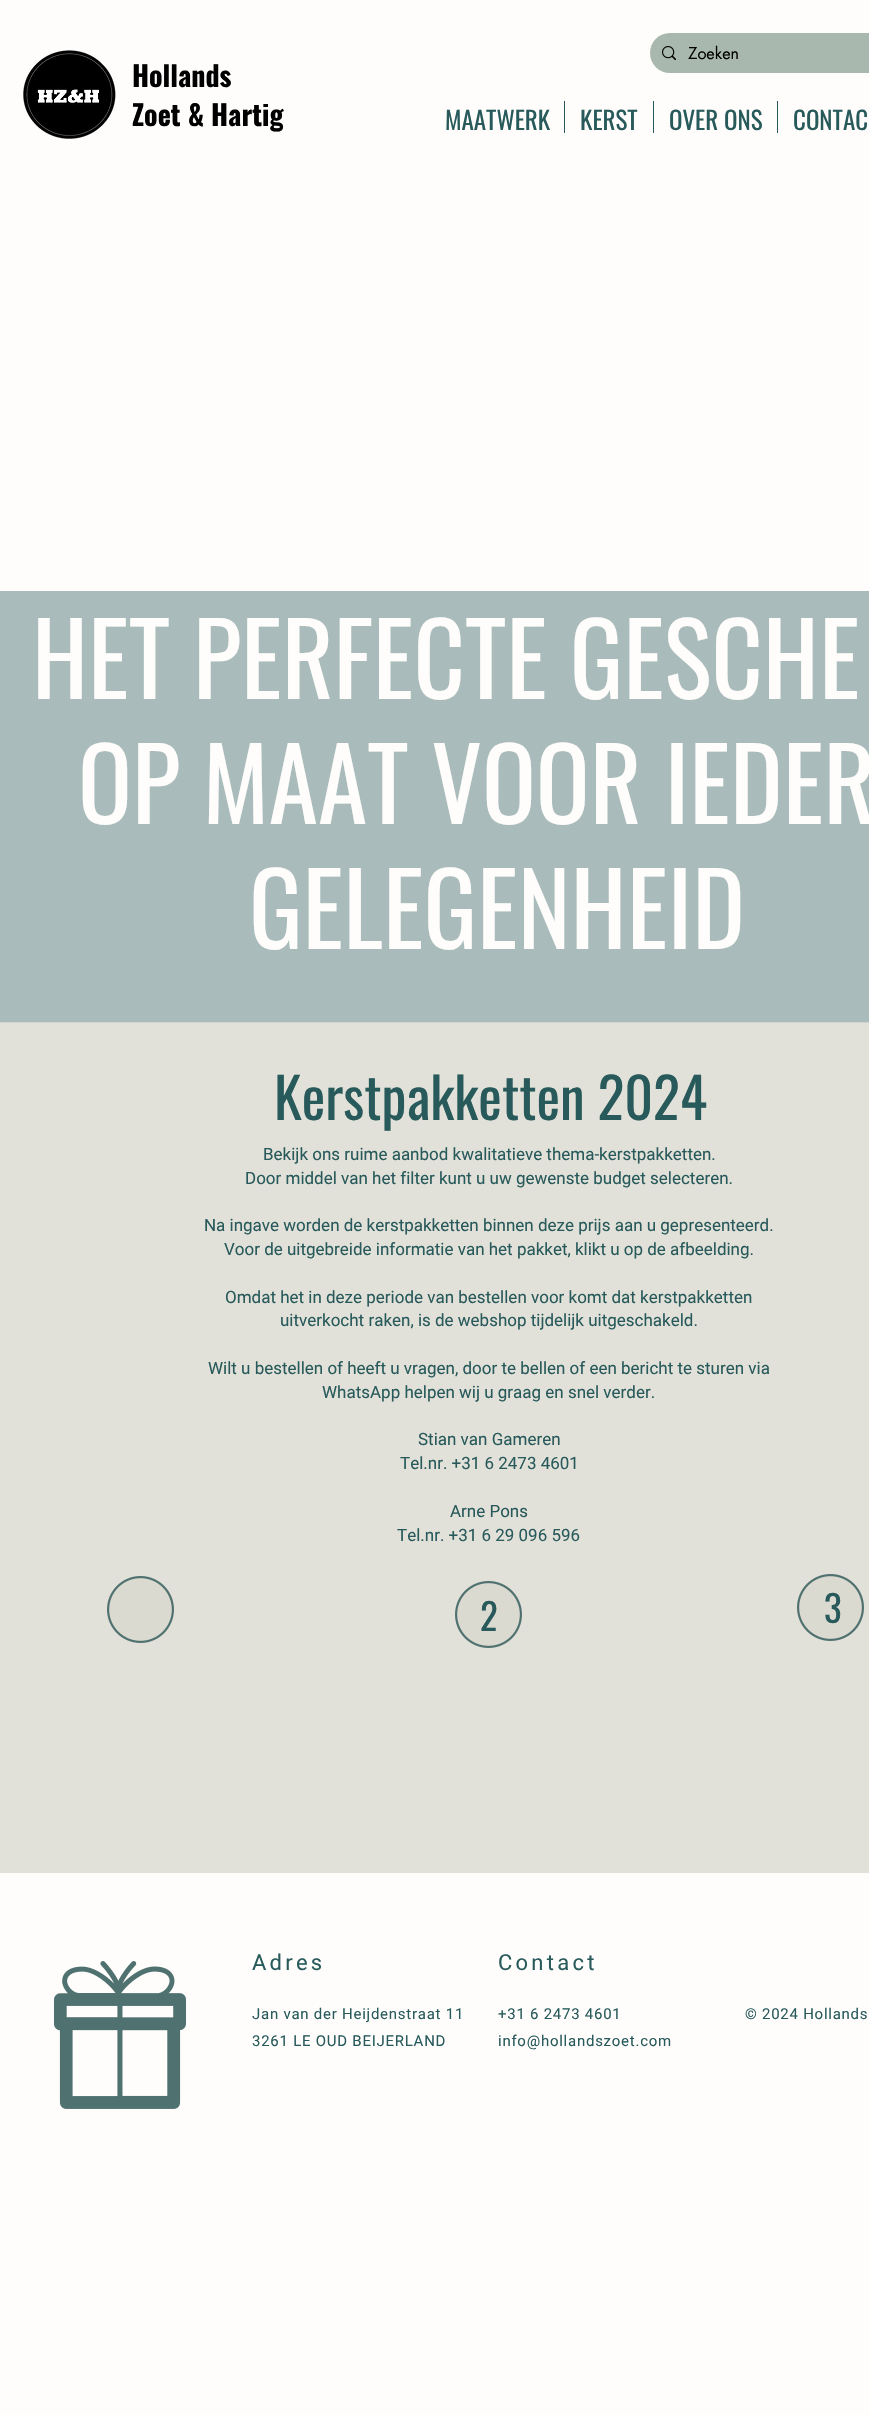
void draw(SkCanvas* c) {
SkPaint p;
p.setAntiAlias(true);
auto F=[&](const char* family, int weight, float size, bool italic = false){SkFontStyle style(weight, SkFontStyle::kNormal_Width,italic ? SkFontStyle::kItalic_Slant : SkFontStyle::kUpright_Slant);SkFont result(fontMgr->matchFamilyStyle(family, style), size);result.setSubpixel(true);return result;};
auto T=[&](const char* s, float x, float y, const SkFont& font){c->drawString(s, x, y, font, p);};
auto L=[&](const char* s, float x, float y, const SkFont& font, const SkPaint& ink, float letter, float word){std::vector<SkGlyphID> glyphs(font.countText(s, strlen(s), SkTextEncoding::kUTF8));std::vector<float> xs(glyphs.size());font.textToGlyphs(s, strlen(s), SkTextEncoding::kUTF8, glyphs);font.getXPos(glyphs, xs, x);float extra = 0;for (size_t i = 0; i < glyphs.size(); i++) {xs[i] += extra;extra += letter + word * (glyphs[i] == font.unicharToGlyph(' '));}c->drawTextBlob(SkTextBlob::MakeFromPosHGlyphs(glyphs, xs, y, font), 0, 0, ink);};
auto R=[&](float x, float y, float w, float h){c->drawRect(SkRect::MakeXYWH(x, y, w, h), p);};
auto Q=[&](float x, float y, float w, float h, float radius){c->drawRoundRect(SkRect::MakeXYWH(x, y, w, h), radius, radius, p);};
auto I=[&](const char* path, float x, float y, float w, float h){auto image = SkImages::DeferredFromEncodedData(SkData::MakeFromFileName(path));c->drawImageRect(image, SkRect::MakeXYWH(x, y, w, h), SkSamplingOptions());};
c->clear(0xfffffdfb);
I("1.png",23,50,93,89);
auto f1 = F("Oswald",700,28);
p.setColor(0xff000000);
T("Hollands",132,87,f1);
T("Zoet & Hartig",132,126,f1);
p.setColor(0xffa8b8ae);
Q(650,33,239,40,20);
I("2.png",662,46,14,14);
auto f2 = F("futura",400,16);
p.setColor(0xff000000);
T("Zoeken",688,59,f2);
auto f3 = F("Oswald",400,25);
p.setColor(0xff285a5b);
T("MAATWERK",445,130,f3);
R(564,101,1,32);
T("KERST",580,130,f3);
R(653,101,1,32);
T("OVER ONS",669,130,f3);
R(777,101,1,32);
T("CONTAC",793,130,f3);
p.setColor(0xffa9bcbb);
R(0,591,869,431);
p.setColor(0xffd1d4cc);
R(0,1022,869,1);
auto f4 = F("Oswald",400,100);
p.setColor(0xfffffdfb);
T("HET PERFECTE GESCHE",32,699,f4);
T("OP MAAT VOOR IEDER",78,824,f4);
T("GELEGENHEID",249,949,f4);
p.setColor(0xffe2e1d9);
R(0,1023,869,850);
auto f5 = F("Oswald",400,56);
p.setColor(0xff285a5b);
T("Kerstpakketten 2024",274,1120,f5);
auto f6 = F("Roboto",400,17);
T("Bekijk ons ruime aanbod kwalitatieve thema-kerstpakketten.",263,1160,f6);
T("Door middel van het filter kunt u uw gewenste budget selecteren.",245,1184,f6);
T("Na ingave worden de kerstpakketten binnen deze prijs aan u gepresenteerd.",204,1231,f6);
T("Voor de uitgebreide informatie van het pakket, klikt u op de afbeelding.",224,1255,f6);
T("Omdat het in deze periode van bestellen voor komt dat kerstpakketten",225,1303,f6);
T("uitverkocht raken, is de webshop tijdelijk uitgeschakeld.",280,1326,f6);
T("Wilt u bestellen of heeft u vragen, door te bellen of een bericht te sturen via",208,1374,f6);
T("WhatsApp helpen wij u graag en snel verder.",322,1398,f6);
T("Stian van Gameren",418,1445,f6);
T("Tel.nr. +31 6 2473 4601",400,1469,f6);
T("Arne Pons",450,1517,f6);
T("Tel.nr. +31 6 29 096 596",397,1541,f6);
I("3.png",107,1576,67,67);
I("3.png",455,1581,67,67);
I("3.png",797,1574,67,67);
auto f7 = F("Oswald",400,37);
T("2",480,1631,f7);
T("3",824,1623,f7);
I("4.png",54,1961,132,148);
auto f8 = F("Roboto",400,22);
L("Adres",252,1970,f8,p,3.25,0);
auto f9 = F("Roboto",400,15);
L("Jan van der Heijdenstraat 11",252,2019,f9,p,.75,0);
L("3261 LE OUD BEIJERLAND",252,2046,f9,p,.75,0);
L("Contact",498,1970,f8,p,3.25,0);
L("+31 6 2473 4601",498,2019,f9,p,.75,0);
L("info@hollandszoet.com",498,2046,f9,p,.75,0);
L("© 2024 Hollands",745,2019,f9,p,.75,0);
}
